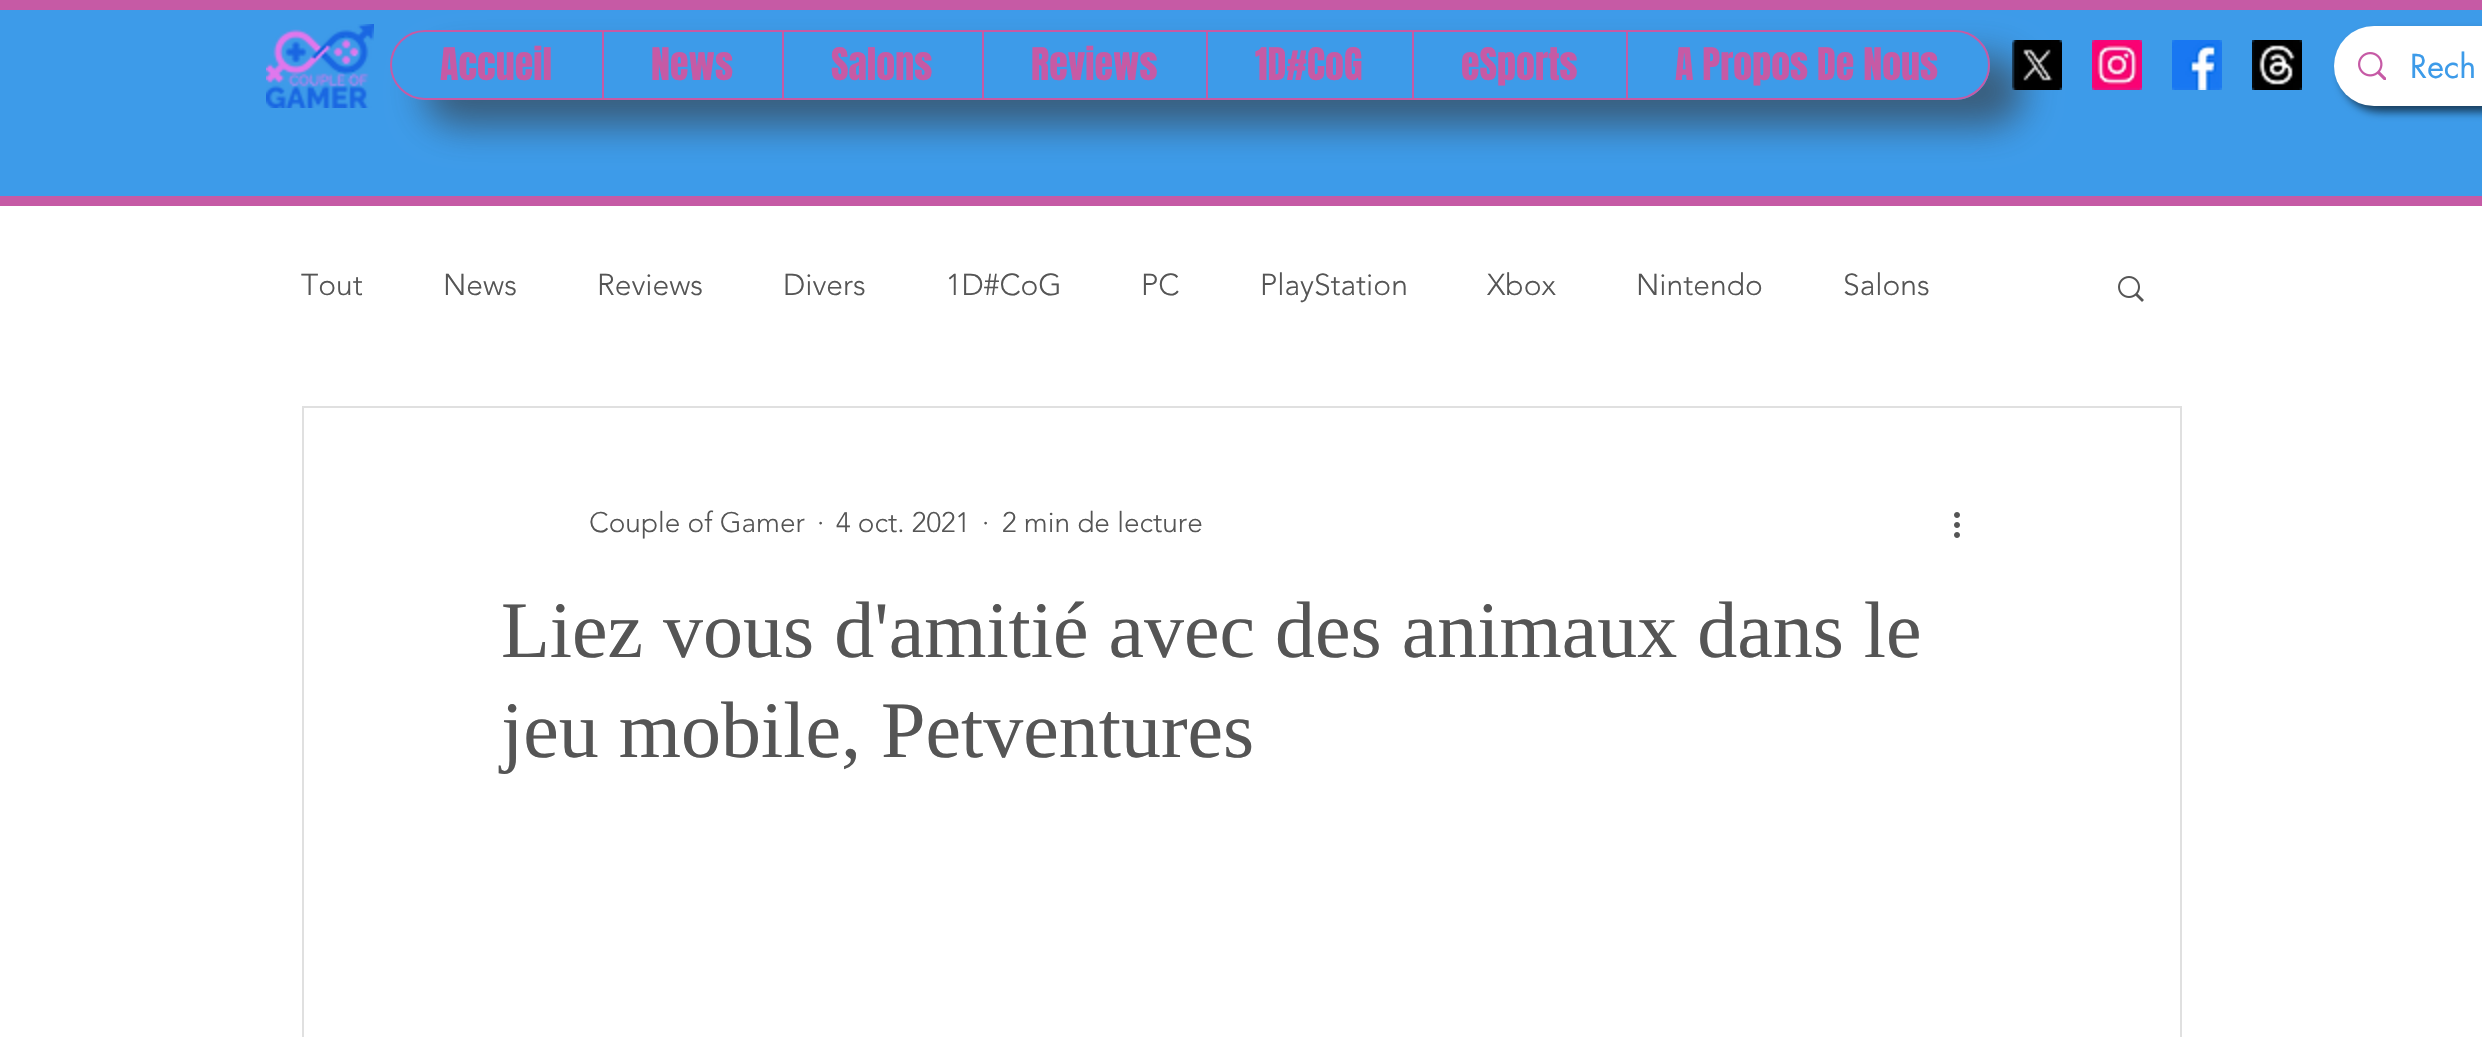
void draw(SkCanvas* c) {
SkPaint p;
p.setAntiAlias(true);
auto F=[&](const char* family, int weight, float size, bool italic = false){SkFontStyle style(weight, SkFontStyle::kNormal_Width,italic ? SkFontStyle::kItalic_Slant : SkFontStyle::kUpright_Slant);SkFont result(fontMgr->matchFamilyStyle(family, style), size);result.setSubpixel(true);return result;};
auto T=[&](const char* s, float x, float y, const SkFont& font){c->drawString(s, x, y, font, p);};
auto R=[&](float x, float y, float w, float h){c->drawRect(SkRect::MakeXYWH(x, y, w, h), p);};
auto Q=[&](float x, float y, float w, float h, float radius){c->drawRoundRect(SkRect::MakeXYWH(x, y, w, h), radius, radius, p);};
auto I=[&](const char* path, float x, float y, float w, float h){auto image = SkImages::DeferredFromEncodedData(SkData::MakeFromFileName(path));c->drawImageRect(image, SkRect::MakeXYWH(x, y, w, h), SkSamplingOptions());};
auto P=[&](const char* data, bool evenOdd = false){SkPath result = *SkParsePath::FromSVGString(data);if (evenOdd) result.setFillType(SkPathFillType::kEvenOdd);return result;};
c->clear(0xffffffff);
p.setColor(0xff3d9be9);
R(0,10,2482,186);
p.setColor(0xffc65aa5);
R(0,0,2482,10);
R(0,196,2482,10);
I("1.png",266,24,108,84);
c->save();
c->clipPath(P("M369 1h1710v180h-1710zm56 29h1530c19.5 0 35 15.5 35 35c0 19.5-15.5 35-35 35h-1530c-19.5 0-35-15.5-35-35c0-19.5 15.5-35 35-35z",true),true);
p.setColor(0x99353434);
p.setMaskFilter(SkMaskFilter::MakeBlur(kNormal_SkBlurStyle, 18));
c->drawRoundRect(SkRect::MakeXYWH(424,56,1600,70),35,35,p);
p.setMaskFilter(nullptr);
c->restore();
p.setStroke(true);
p.setStrokeWidth(2);
p.setColor(0xffc65aa5);
c->drawRoundRect(SkRect::MakeXYWH(391,31,1598,68),34,34,p);
auto f1 = F("Anton",400,38);
p.setStroke(false);
T("Accueil",440,80,f1);
R(602,32,2,66);
T("News",651,80,f1);
R(782,32,2,66);
T("Salons",831,80,f1);
R(982,32,2,66);
T("Reviews",1031,80,f1);
R(1206,32,2,66);
T("1D#CoG",1255,80,f1);
R(1412,32,2,66);
T("eSports",1461,80,f1);
R(1626,32,2,66);
T("A Propos De Nous",1675,80,f1);
I("2.png",2012,40,50,50);
I("3.png",2092,40,50,50);
I("4.png",2172,40,50,50);
I("5.png",2252,40,50,50);
p.setColor(0x99000000);
p.setMaskFilter(SkMaskFilter::MakeBlur(kNormal_SkBlurStyle, 4));
c->drawRoundRect(SkRect::MakeXYWH(2340,32,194,80),40,40,p);
p.setMaskFilter(nullptr);
p.setColor(0xffffffff);
Q(2334,26,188,80,40);
I("6.png",2358,52,28,28);
auto f2 = F("futura",400,32);
p.setColor(0xff3d9be9);
T("Rech",2410,78,f2);
auto f3 = F("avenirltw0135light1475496",300,30);
p.setColor(0xff555555);
T("Tout",301,295,f3);
T("News",443,295,f3);
T("Reviews",597,295,f3);
T("Divers",783,295,f3);
T("1D#CoG",946,295,f3);
T("PC",1141,295,f3);
T("PlayStation",1260,295,f3);
T("Xbox",1487,295,f3);
T("Nintendo",1636,295,f3);
T("Salons",1843,295,f3);
I("7.png",2118,276,26,26);
p.setStroke(true);
p.setColor(0xffe0e0e0);
c->drawRect(SkRect::MakeXYWH(303,407,1878,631),p);
auto f4 = F("avenirltw0135light1475496",300,28);
p.setStroke(false);
p.setColor(0xff555555);
T("Couple of Gamer",589,532,f4);
T("·",817,532,f4);
T("4 oct. 2021",836,532,f4);
T("·",982,532,f4);
T("2 min de lecture",1002,532,f4);
I("8.png",1954,512,6,26);
auto f5 = F("Liberation Serif",400,80);
T("Liez vous d'amitié avec des animaux dans le",501,657,f5);
T("jeu mobile, Petventures",501,757,f5);
}
